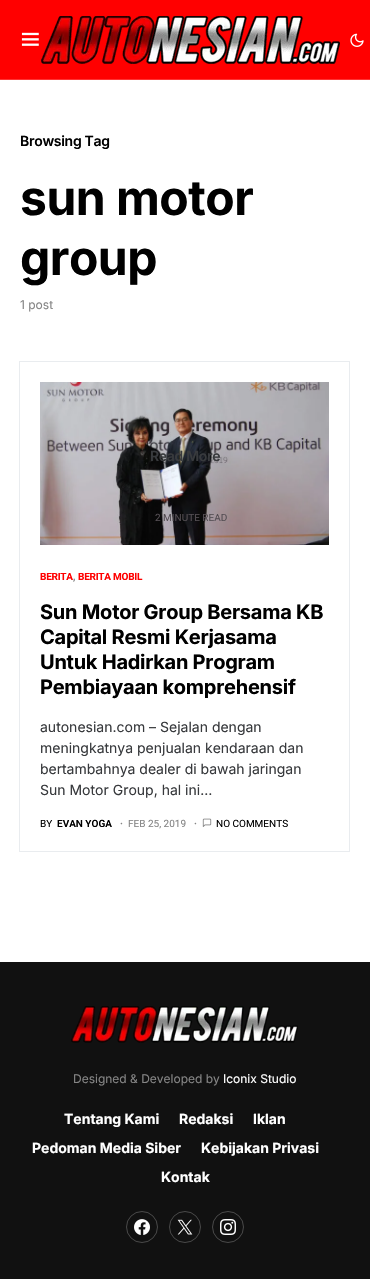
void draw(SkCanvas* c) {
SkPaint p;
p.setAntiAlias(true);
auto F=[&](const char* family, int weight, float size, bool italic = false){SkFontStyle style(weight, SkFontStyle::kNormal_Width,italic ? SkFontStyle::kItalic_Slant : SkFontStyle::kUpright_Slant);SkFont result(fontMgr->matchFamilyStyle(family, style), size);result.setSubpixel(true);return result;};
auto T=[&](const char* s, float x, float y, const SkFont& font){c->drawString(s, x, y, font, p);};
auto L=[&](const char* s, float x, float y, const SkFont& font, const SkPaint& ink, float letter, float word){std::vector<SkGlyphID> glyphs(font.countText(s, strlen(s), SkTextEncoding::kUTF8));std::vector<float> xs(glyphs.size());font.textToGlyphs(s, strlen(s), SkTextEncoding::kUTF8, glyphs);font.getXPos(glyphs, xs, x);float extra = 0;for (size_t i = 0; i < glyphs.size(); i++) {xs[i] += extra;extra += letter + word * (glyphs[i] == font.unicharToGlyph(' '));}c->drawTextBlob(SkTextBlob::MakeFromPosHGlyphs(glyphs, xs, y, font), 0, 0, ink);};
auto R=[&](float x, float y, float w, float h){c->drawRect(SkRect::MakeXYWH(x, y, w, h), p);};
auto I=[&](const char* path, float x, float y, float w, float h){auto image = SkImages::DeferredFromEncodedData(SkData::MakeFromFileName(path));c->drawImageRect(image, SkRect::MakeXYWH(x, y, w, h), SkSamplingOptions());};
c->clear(0xffffffff);
p.setColor(0xffff0000);
R(0,0,370,79);
p.setColor(0xffff3333);
R(0,79,370,1);
I("1.png",21,32,18,14);
I("2.png",41,16,299,48);
I("3.png",350,33,14,14);
auto f1 = F("Inter",600,14);
p.setColor(0xff000000);
L("Browsing Tag",20,146,f1,p,-.3,0);
auto f2 = F("Inter",700,48);
L("sun motor",20,215,f2,p,-.5,0);
L("group",20,275,f2,p,-.5,0);
auto f3 = F("Inter",400,12);
p.setColor(0xff858585);
T("1 post",20,309,f3);
p.setStroke(true);
p.setStrokeWidth(1);
p.setColor(0xffe9ecef);
c->drawRect(SkRect::MakeXYWH(19.5,361.5,330,490),p);
I("4.png",40,382,289,163);
p.setStroke(false);
p.setColor(0xff383a3d);
L("Read More",150,461,f1,p,-.3,0);
auto f4 = F("Roboto",400,10);
p.setColor(0xff544e53);
T("2 MINUTE READ",155,521,f4);
auto f5 = F("Roboto",700,10);
p.setColor(0xff858585);
L(",",73,580,f5,p,-.25,0);
p.setColor(0xffff0000);
L("BERITA",40,580,f5,p,-.25,0);
L("BERITA MOBIL",78,580,f5,p,-.25,0);
auto f6 = F("Inter",700,20);
p.setColor(0xff000000);
L("Sun Motor Group Bersama KB",40,619,f6,p,-.25,0);
L("Capital Resmi Kerjasama",40,644,f6,p,-.25,0);
L("Untuk Hadirkan Program",40,669,f6,p,-.25,0);
L("Pembiayaan komprehensif",40,694,f6,p,-.25,0);
auto f7 = F("Inter",400,14);
p.setColor(0xff383a3d);
T("autonesian.com – Sejalan dengan",40,732,f7);
T("meningkatnya penjualan kendaraan dan",40,753,f7);
T("bertambahnya dealer di bawah jaringan",40,774,f7);
T("Sun Motor Group, hal ini…",40,795,f7);
p.setColor(0xff000000);
T("BY",40,827,f4);
auto f8 = F("Roboto",600,10);
T("EVAN YOGA",57,827,f8);
p.setColor(0xff858585);
T("·",120,827,f8);
T("FEB 25, 2019",128,827,f4);
T("·",194,827,f8);
I("5.png",202,818,10,9);
p.setColor(0xff000000);
T("NO COMMENTS",216,827,f4);
p.setColor(0xff111111);
R(0,962,370,317);
I("6.png",71,1006,227,37);
p.setColor(0xff858585);
T("Designed & Developed by",73,1083,f3);
p.setColor(0xffffffff);
T("Iconix Studio",223,1083,f3);
auto f9 = F("Inter",700,14);
T("Tentang Kami",64,1124,f9);
T("Redaksi",179,1124,f9);
T("Iklan",253,1124,f9);
T("Pedoman Media Siber",32,1153,f9);
T("Kebijakan Privasi",201,1153,f9);
T("Kontak",161,1182,f9);
p.setStroke(true);
p.setColor(0xff494949);
c->drawCircle(142,1227,15.5,p);
I("7.png",134,1219,16,16);
c->drawCircle(185,1227,15.5,p);
I("8.png",177,1219,16,16);
c->drawCircle(228,1227,15.5,p);
I("9.png",220,1219,16,16);
}
